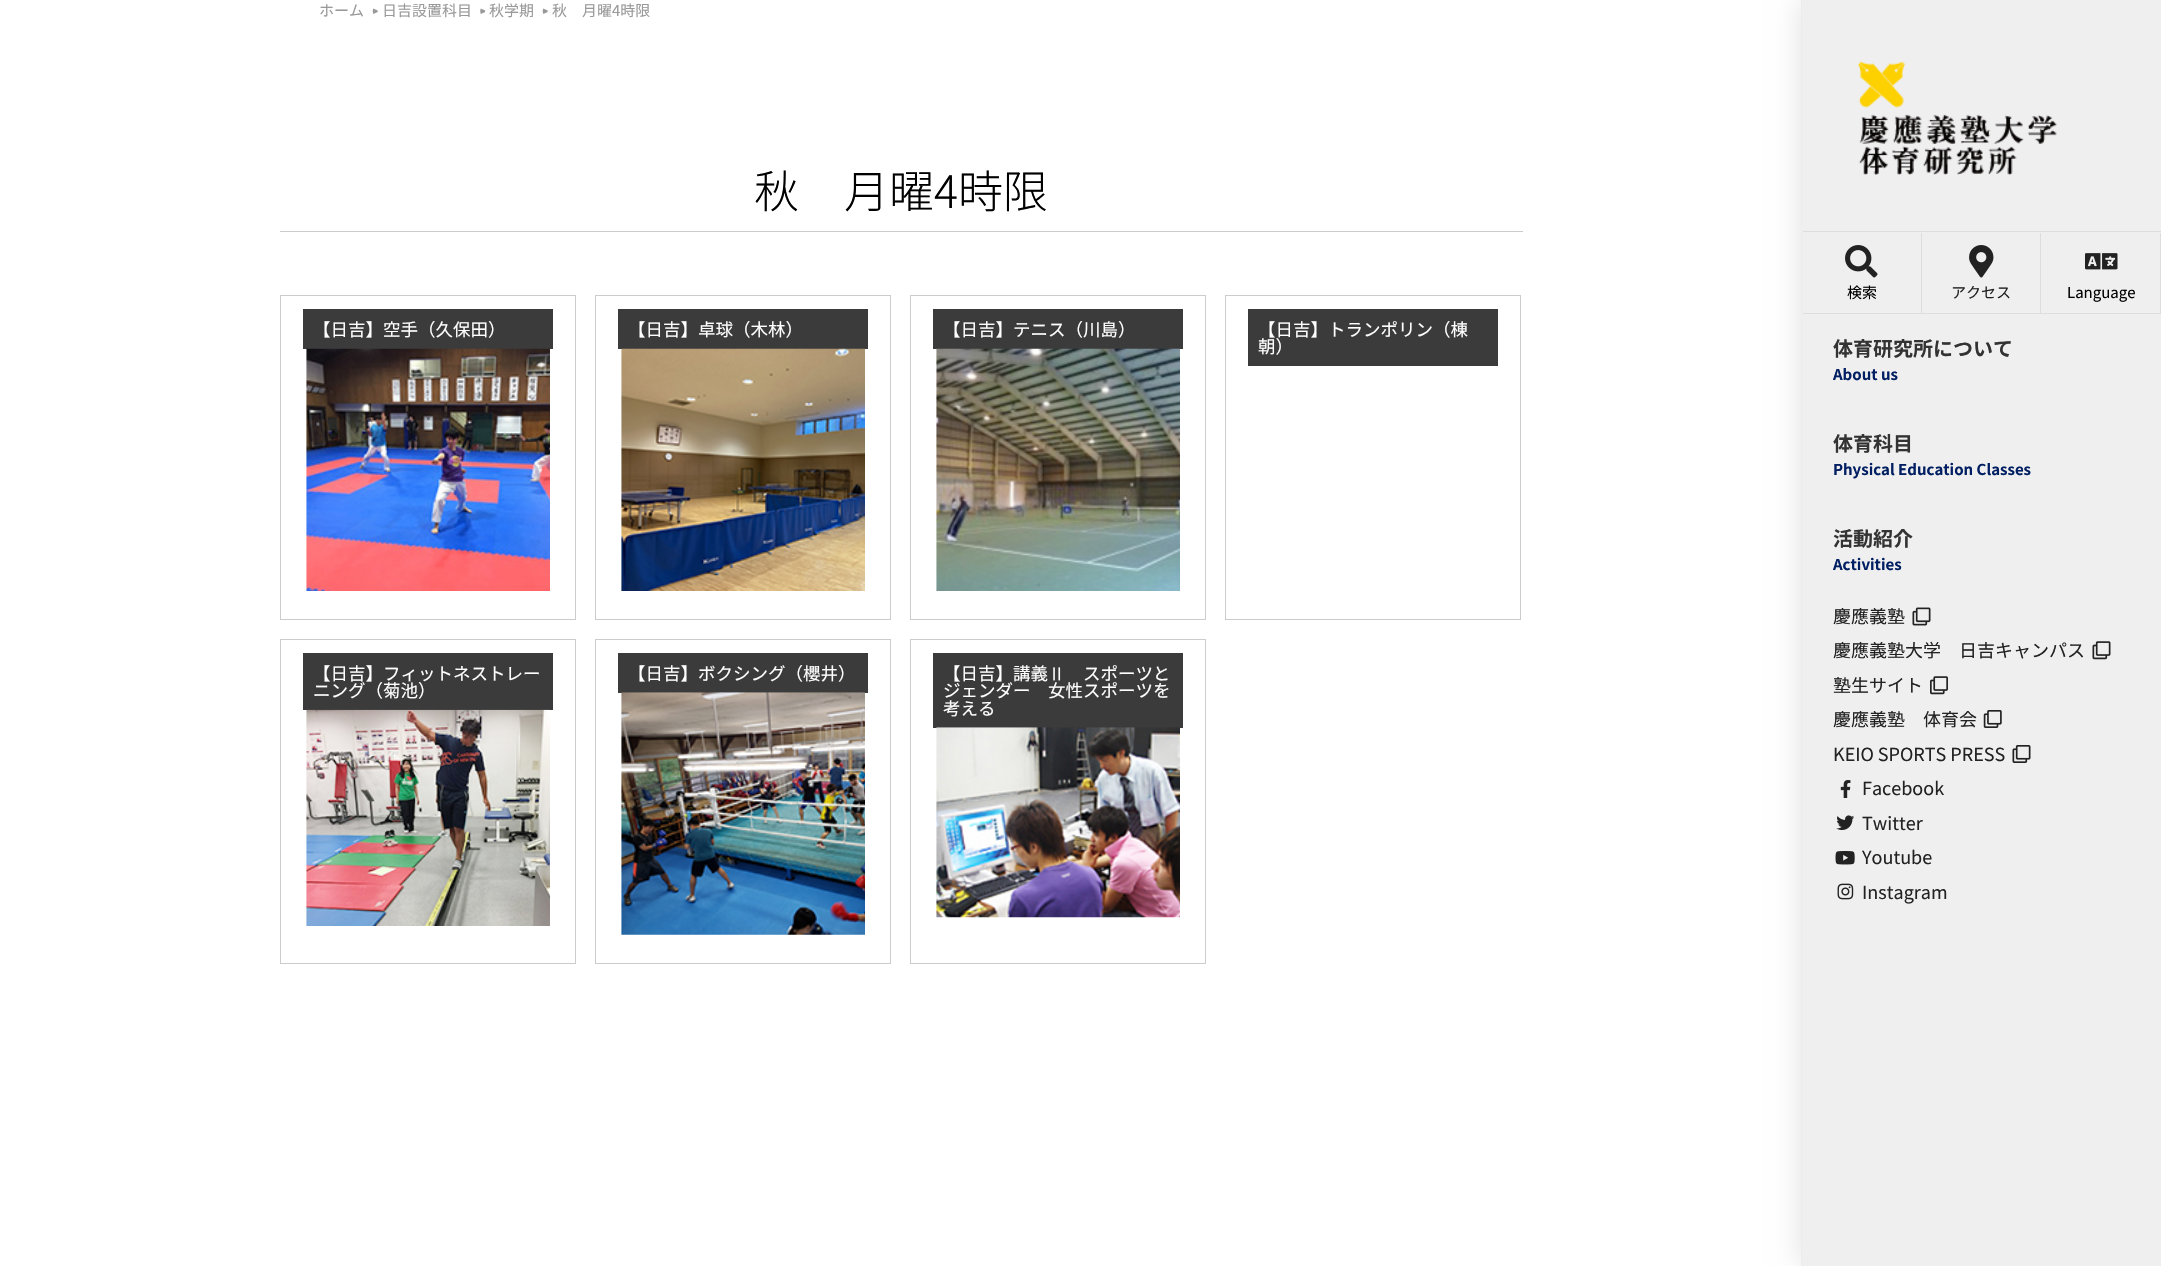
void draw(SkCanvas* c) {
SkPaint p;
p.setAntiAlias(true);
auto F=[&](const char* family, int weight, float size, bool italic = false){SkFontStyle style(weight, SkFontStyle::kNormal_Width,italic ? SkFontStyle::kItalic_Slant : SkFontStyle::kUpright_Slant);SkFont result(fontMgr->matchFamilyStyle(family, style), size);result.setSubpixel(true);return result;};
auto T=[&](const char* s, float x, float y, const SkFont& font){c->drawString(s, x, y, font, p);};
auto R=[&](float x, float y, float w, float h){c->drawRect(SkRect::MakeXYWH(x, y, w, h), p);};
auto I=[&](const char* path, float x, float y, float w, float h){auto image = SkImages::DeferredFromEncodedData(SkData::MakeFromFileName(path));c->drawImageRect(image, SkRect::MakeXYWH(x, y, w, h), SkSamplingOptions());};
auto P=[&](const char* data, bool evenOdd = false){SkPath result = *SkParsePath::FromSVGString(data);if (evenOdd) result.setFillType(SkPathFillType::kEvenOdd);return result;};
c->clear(0xffffffff);
auto f1 = F("Noto Sans JP",400,15);
p.setColor(0xff999999);
T("ホーム",319,16,f1);
p.setStroke(true);
p.setStrokeWidth(5);
c->drawPath(P("M375.5 13c-.5-1-.5-2.5 0-3.5"),p);
p.setStroke(false);
T("日吉設置科目",382,16,f1);
p.setStroke(true);
c->drawPath(P("M483 13c-.5-1-.5-2.5 0-3.5"),p);
p.setStroke(false);
T("秋学期",489,16,f1);
p.setStroke(true);
c->drawPath(P("M545.5 13c-.5-1-.5-2.5 0-3.5"),p);
p.setStroke(false);
T("秋　月曜4時限",552,16,f1);
p.setColor(0xffcccccc);
R(280,231,1243,1);
auto f2 = F("Noto Sans JP",300,45);
p.setColor(0xff000000);
T("秋　月曜4時限",754,208,f2);
p.setStroke(true);
p.setStrokeWidth(1);
p.setColor(0xffcccccc);
c->drawRect(SkRect::MakeXYWH(280.5,295.5,295,324),p);
p.setStroke(false);
p.setColor(0xff3b3b3b);
R(303,309,250,40);
auto f3 = F("Noto Sans JP",400,17.5);
p.setColor(0xffffffff);
T("【日吉】空手（久保田）",313,336,f3);
I("1.png",306,348,244,243);
p.setStroke(true);
p.setColor(0xffcccccc);
c->drawRect(SkRect::MakeXYWH(595.5,295.5,295,324),p);
p.setStroke(false);
p.setColor(0xff3b3b3b);
R(618,309,250,40);
p.setColor(0xffffffff);
T("【日吉】卓球（木林）",628,336,f3);
I("2.png",621,348,244,243);
p.setStroke(true);
p.setColor(0xffcccccc);
c->drawRect(SkRect::MakeXYWH(910.5,295.5,295,324),p);
p.setStroke(false);
p.setColor(0xff3b3b3b);
R(933,309,250,40);
p.setColor(0xffffffff);
T("【日吉】テニス（川島）",943,336,f3);
I("3.png",936,348,244,243);
p.setStroke(true);
p.setColor(0xffcccccc);
c->drawRect(SkRect::MakeXYWH(1225.5,295.5,295,324),p);
p.setStroke(false);
p.setColor(0xff3b3b3b);
R(1248,309,250,57);
p.setColor(0xffffffff);
T("【日吉】トランポリン（棟",1258,336,f3);
T("朝）",1258,353,f3);
p.setStroke(true);
p.setColor(0xffcccccc);
c->drawRect(SkRect::MakeXYWH(280.5,639.5,295,324),p);
p.setStroke(false);
p.setColor(0xff3b3b3b);
R(303,653,250,57);
p.setColor(0xffffffff);
T("【日吉】フィットネストレー",313,680,f3);
T("ニング（菊池）",313,697,f3);
I("4.png",306,709,244,217);
p.setStroke(true);
p.setColor(0xffcccccc);
c->drawRect(SkRect::MakeXYWH(595.5,639.5,295,324),p);
p.setStroke(false);
p.setColor(0xff3b3b3b);
R(618,653,250,40);
p.setColor(0xffffffff);
T("【日吉】ボクシング（櫻井）",628,680,f3);
I("5.png",621,692,244,243);
p.setStroke(true);
p.setColor(0xffcccccc);
c->drawRect(SkRect::MakeXYWH(910.5,639.5,295,324),p);
p.setStroke(false);
p.setColor(0xff3b3b3b);
R(933,653,250,75);
p.setColor(0xffffffff);
T("【日吉】講義",943,680,f3);
auto f4 = F("WenQuanYi Zen Hei",500,17.5);
T("Ⅱ",1048,680,f4);
T("スポーツと",1083,680,f3);
T("ジェンダー　女性スポーツを",943,697,f3);
T("考える",943,715,f3);
I("6.png",936,727,244,191);
p.setColor(0x1a000000);
p.setMaskFilter(SkMaskFilter::MakeBlur(kNormal_SkBlurStyle, 12.5));
c->drawRect(SkRect::MakeXYWH(1799,0,360,1266),p);
p.setMaskFilter(nullptr);
p.setColor(0xffefefef);
R(1802,0,359,1266);
p.setColor(0xffececec);
R(1801,0,1,1266);
I("7.png",1857,61,200,114);
p.setColor(0xffdddddd);
R(1803,231,358,1);
R(1803,313,358,1);
R(1921,233,1,82);
I("8.png",1845,245,33,33);
p.setColor(0xff000000);
T("検索",1847,298,f1);
p.setColor(0xffdddddd);
R(2040,233,1,82);
I("9.png",1969,245,25,33);
p.setColor(0xff222222);
T("アクセス",1951,298,f1);
p.setColor(0xffdddddd);
R(2160,233,1,82);
I("10.png",2085,253,33,17);
p.setColor(0xff000000);
T("Language",2067,298,f1);
p.setColor(0xffefefef);
R(1921,314,240,1);
auto f5 = F("Noto Sans JP",700,20);
p.setColor(0xff333333);
T("体育研究所について",1833,356,f5);
auto f6 = F("Noto Sans JP",700,15);
p.setColor(0xff001e62);
T("About us",1833,380,f6);
p.setColor(0xff333333);
T("体育科目",1833,451,f5);
p.setColor(0xff001e62);
T("Physical Education Classes",1833,475,f6);
p.setColor(0xff333333);
T("活動紹介",1833,546,f5);
p.setColor(0xff001e62);
T("Activities",1833,570,f6);
auto f7 = F("Noto Sans JP",400,18);
p.setColor(0xff222222);
T("慶應義塾",1833,623,f7);
I("11.png",1912,607,19,19);
T("慶應義塾大学　日吉キャンパス",1833,657,f7);
I("12.png",2092,641,19,19);
T("塾生サイト",1833,692,f7);
I("13.png",1930,676,18,19);
T("慶應義塾　体育会",1833,726,f7);
I("14.png",1983,710,19,18);
T("KEIO SPORTS PRESS",1833,761,f7);
I("15.png",2012,745,19,18);
I("16.png",1840,780,11,18);
T("Facebook",1862,795,f7);
I("17.png",1836,815,19,16);
T("Twitter",1862,830,f7);
I("18.png",1835,851,20,14);
T("Youtube",1862,864,f7);
I("19.png",1837,883,17,17);
T("Instagram",1862,899,f7);
}
